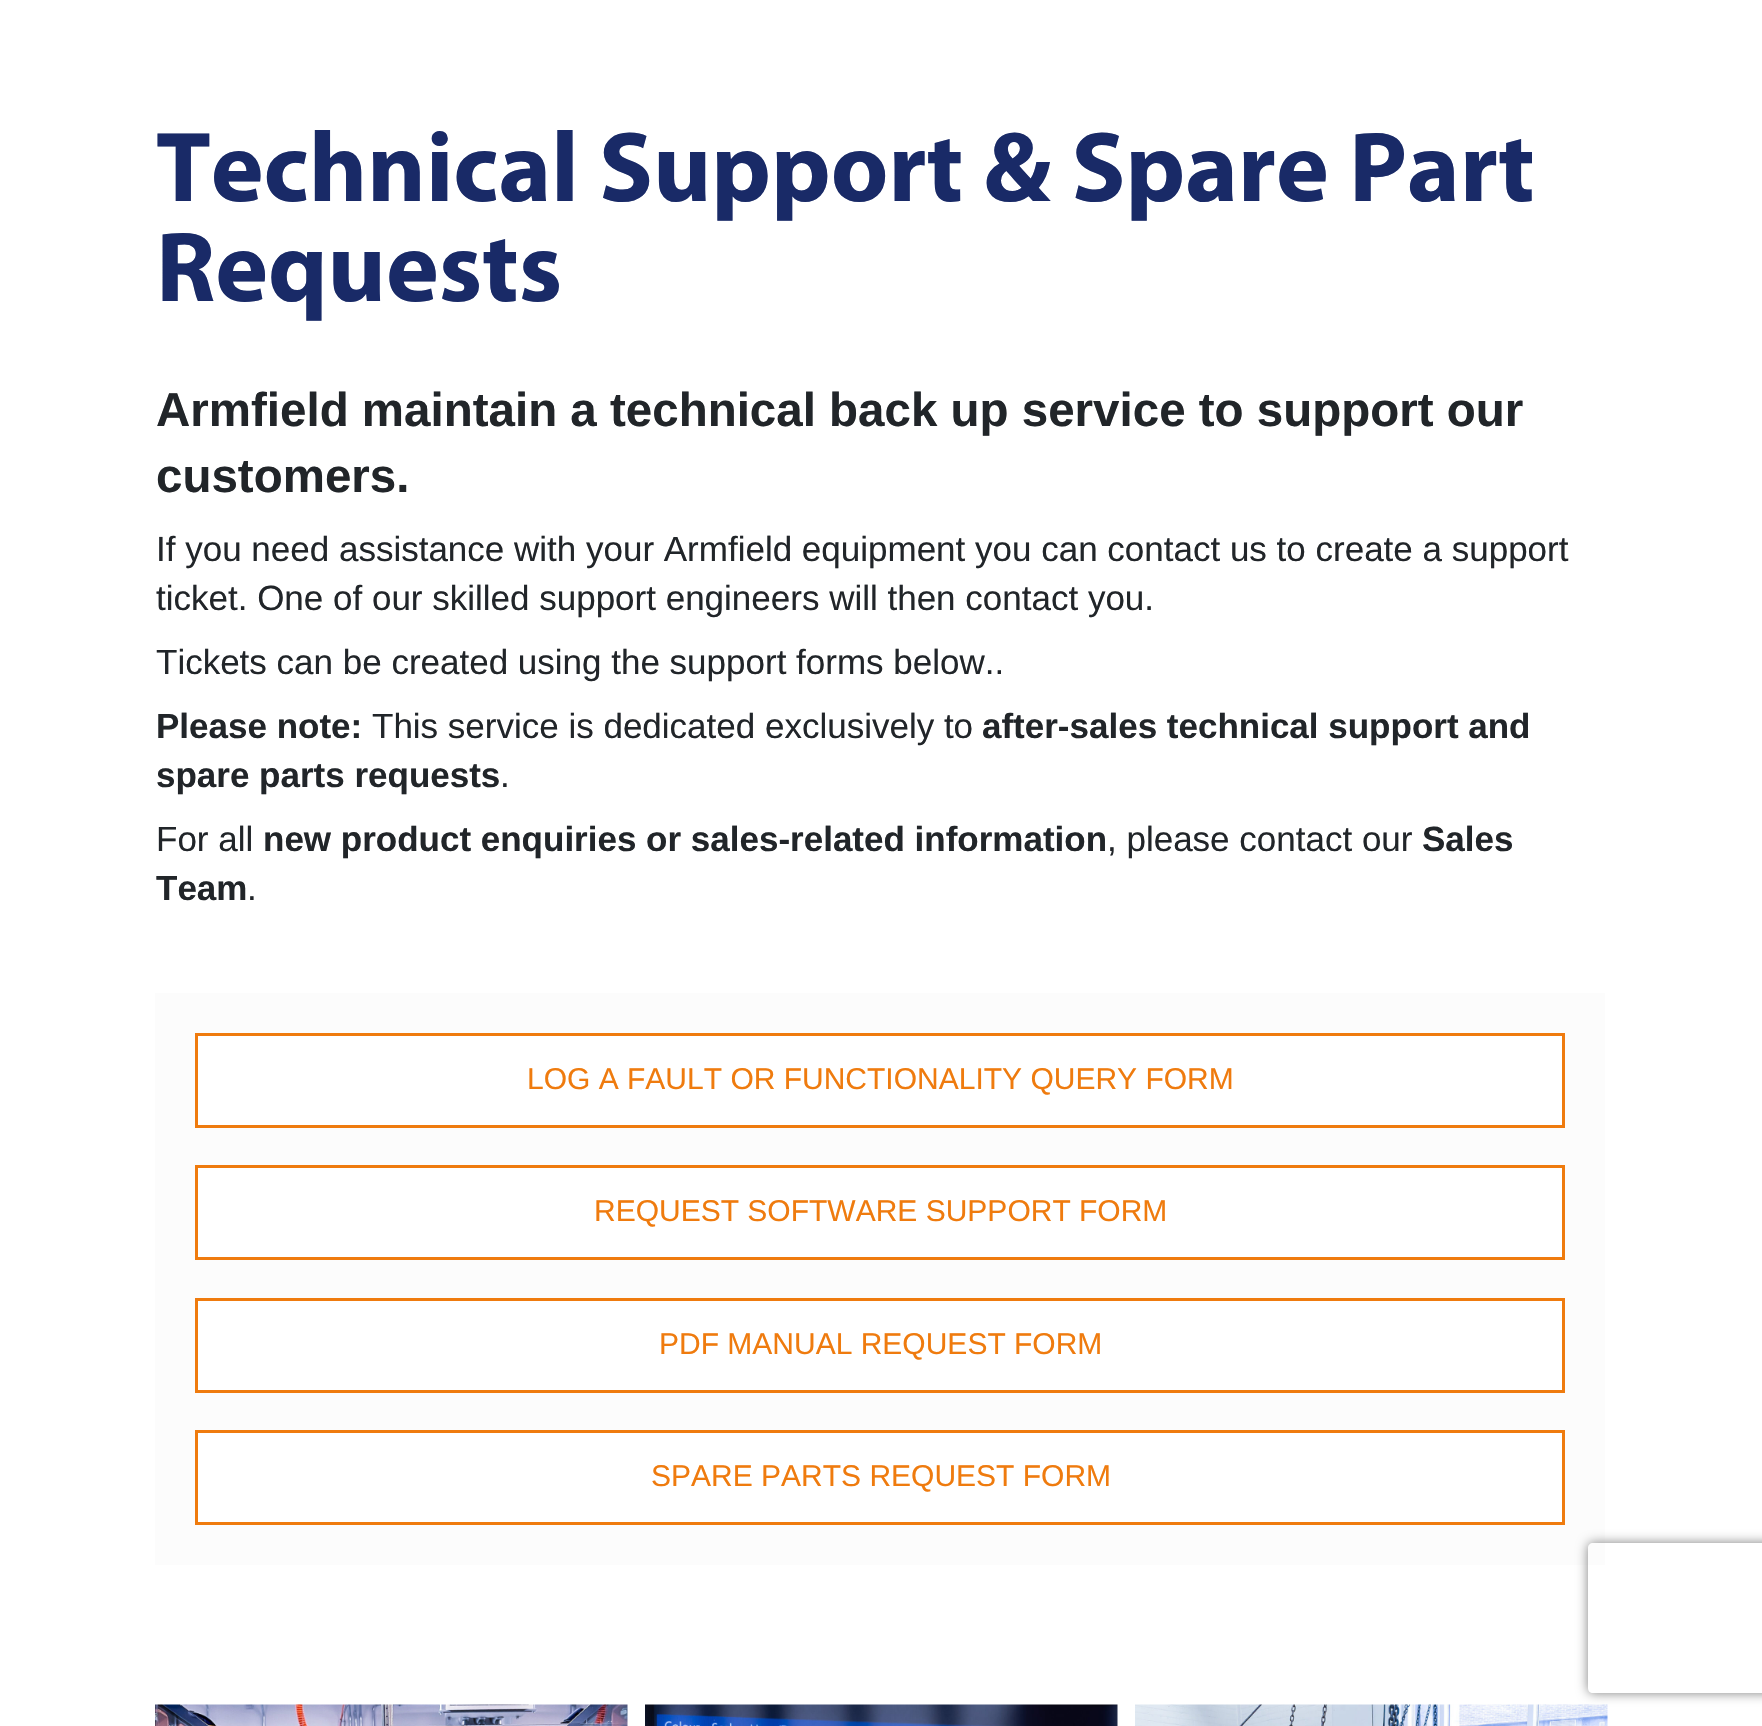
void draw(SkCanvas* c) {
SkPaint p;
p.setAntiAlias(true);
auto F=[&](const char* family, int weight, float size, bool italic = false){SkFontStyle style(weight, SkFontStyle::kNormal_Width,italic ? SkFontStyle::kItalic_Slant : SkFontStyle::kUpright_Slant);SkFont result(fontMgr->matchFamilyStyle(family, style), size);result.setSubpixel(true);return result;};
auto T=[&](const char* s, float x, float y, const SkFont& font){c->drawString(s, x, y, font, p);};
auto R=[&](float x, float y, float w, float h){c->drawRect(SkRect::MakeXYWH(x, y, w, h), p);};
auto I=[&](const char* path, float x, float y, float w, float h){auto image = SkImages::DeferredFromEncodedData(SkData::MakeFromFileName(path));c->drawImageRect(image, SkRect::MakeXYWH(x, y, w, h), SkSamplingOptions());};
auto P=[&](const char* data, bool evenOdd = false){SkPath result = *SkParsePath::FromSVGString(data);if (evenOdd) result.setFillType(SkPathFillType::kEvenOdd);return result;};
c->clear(0xffffffff);
auto f1 = F("Myriad",700,100);
p.setColor(0xff192a67);
T("Technical Support & Spare Part",156,201,f1);
T("Requests",156,301,f1);
auto f2 = F("Liberation Sans",700,47.5);
p.setColor(0xff212529);
T("Armfield maintain a technical back up service to support our",156,426,f2);
T("customers.",156,492,f2);
auto f3 = F("Liberation Sans",400,35);
T("If you need assistance with your Armfield equipment you can contact us to create a support",156,561,f3);
T("ticket. One of our skilled support engineers will then contact you.",156,610,f3);
T("Tickets can be created using the support forms below..",156,674,f3);
auto f4 = F("Liberation Sans",700,35);
T("Please note:",156,738,f4);
T("This service is dedicated exclusively to",372,738,f3);
T("after-sales technical support and",982,738,f4);
T("spare parts requests",156,787,f4);
T(".",500,787,f3);
T("For all",156,851,f3);
T("new product enquiries or sales-related information",263,851,f4);
T(", please contact our",1107,851,f3);
T("Sales",1422,851,f4);
T("Team",156,900,f4);
T(".",247,900,f3);
p.setColor(0xfffcfcfc);
R(155,993,1450,572);
p.setColor(0xffffffff);
c->drawRect(SkRect::MakeXYWH(196.5,1034.5,1367,92),p);
p.setStroke(true);
p.setStrokeWidth(3);
p.setColor(0xffef7b0e);
c->drawRect(SkRect::MakeXYWH(196.5,1034.5,1367,92),p);
auto f5 = F("Liberation Sans",400,30);
p.setStroke(false);
T("LOG A FAULT OR FUNCTIONALITY QUERY FORM",527,1089,f5);
p.setColor(0xffffffff);
c->drawRect(SkRect::MakeXYWH(196.5,1166.5,1367,92),p);
p.setStroke(true);
p.setColor(0xffef7b0e);
c->drawRect(SkRect::MakeXYWH(196.5,1166.5,1367,92),p);
p.setStroke(false);
T("REQUEST SOFTWARE SUPPORT FORM",594,1221,f5);
p.setColor(0xffffffff);
c->drawRect(SkRect::MakeXYWH(196.5,1299.5,1367,92),p);
p.setStroke(true);
p.setColor(0xffef7b0e);
c->drawRect(SkRect::MakeXYWH(196.5,1299.5,1367,92),p);
p.setStroke(false);
T("PDF MANUAL REQUEST FORM",659,1354,f5);
p.setColor(0xffffffff);
c->drawRect(SkRect::MakeXYWH(196.5,1431.5,1367,92),p);
p.setStroke(true);
p.setColor(0xffef7b0e);
c->drawRect(SkRect::MakeXYWH(196.5,1431.5,1367,92),p);
p.setStroke(false);
T("SPARE PARTS REQUEST FORM",651,1486,f5);
I("1.png",155,1704,473,22);
I("2.png",645,1704,473,22);
I("3.png",1135,1704,473,22);
c->save();
c->clipPath(P("M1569 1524h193v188h-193zm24 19h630c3 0 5 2 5 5v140c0 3-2 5-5 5h-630c-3 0-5-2-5-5v-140c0-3 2-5 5-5z",true),true);
p.setColor(0xff808080);
p.setMaskFilter(SkMaskFilter::MakeBlur(kNormal_SkBlurStyle, 6));
c->drawRoundRect(SkRect::MakeXYWH(1588,1543,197,150),5,5,p);
p.setMaskFilter(nullptr);
c->restore();
}
